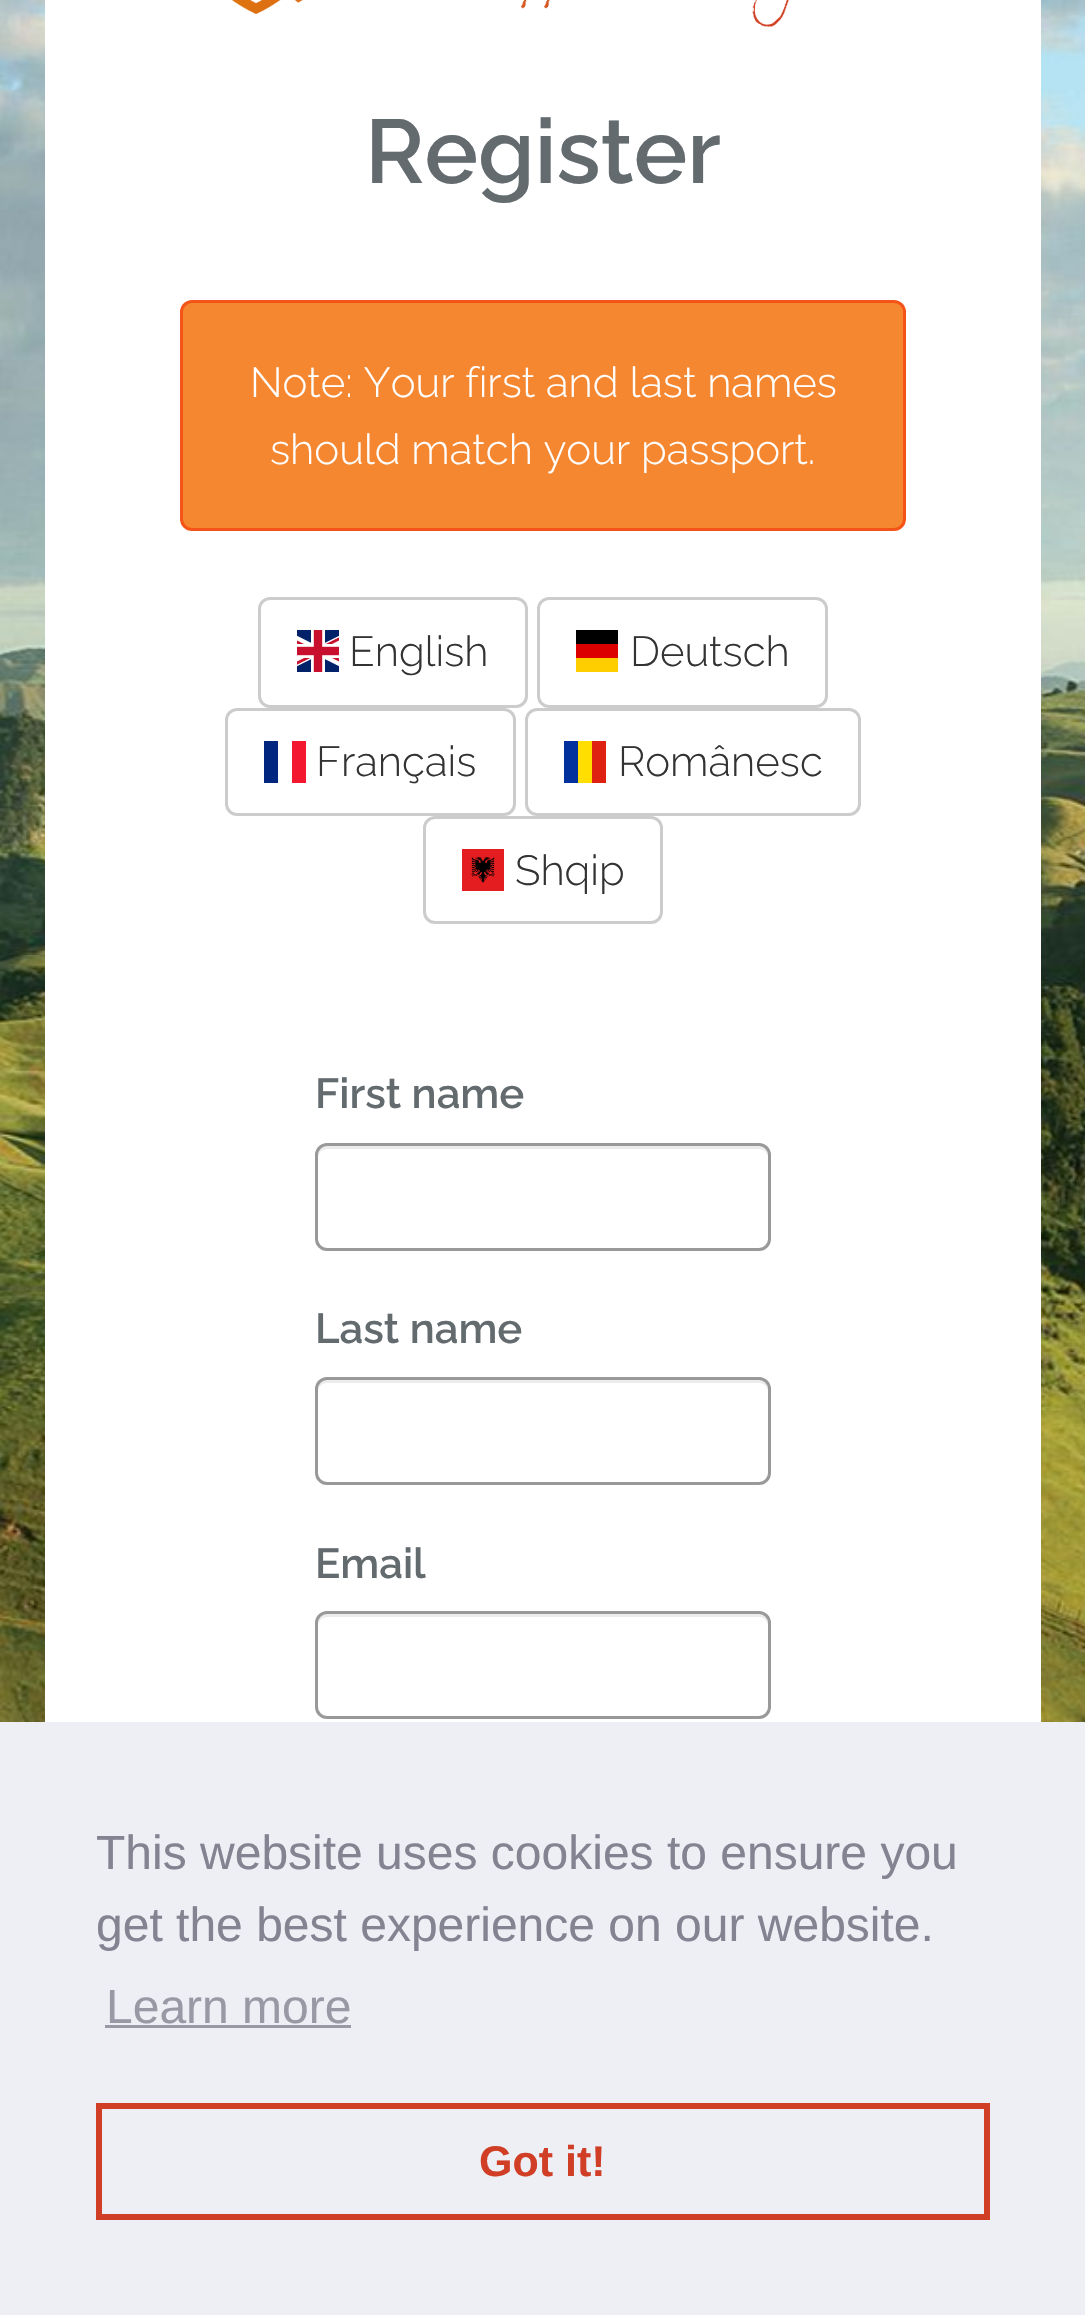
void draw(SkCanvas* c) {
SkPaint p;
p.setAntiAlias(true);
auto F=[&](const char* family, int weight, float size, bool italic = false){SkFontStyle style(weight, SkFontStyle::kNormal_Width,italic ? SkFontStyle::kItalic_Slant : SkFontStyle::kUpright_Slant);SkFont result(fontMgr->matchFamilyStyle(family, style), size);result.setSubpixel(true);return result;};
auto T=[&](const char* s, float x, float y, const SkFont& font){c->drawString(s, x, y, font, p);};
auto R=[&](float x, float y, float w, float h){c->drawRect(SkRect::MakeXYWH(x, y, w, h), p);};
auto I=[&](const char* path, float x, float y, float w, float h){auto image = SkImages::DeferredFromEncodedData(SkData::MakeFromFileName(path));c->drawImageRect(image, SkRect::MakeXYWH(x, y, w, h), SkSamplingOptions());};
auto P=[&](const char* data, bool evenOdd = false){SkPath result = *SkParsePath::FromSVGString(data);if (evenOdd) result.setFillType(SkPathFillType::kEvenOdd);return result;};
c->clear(0xffffffff);
I("1.png",0,0,1085,1722);
p.setColor(0xffffffff);
R(45,0,996,1722);
I("2.png",231,0,558,27);
auto f1 = F("Raleway",600,90);
p.setColor(0xff636b6f);
T("Register",365,183,f1);
p.setColor(0xfff68731);
c->drawRoundRect(SkRect::MakeXYWH(181.5,301.5,723,228),10.5,10.5,p);
p.setStroke(true);
p.setStrokeWidth(3);
p.setColor(0xfff55419);
c->drawRoundRect(SkRect::MakeXYWH(181.5,301.5,723,228),10.5,10.5,p);
auto f2 = F("Raleway",300,42);
p.setStroke(false);
p.setColor(0xffffffff);
T("Note: Your first and last names",250,397,f2);
T("should match your passport.",270,464,f2);
p.setStroke(true);
p.setColor(0xffcccccc);
c->drawRoundRect(SkRect::MakeXYWH(259.5,598.5,267,108),10.5,10.5,p);
I("3.png",297,630,42,42);
p.setStroke(false);
p.setColor(0xff333333);
T("English",349,666,f2);
p.setStroke(true);
p.setColor(0xffcccccc);
c->drawRoundRect(SkRect::MakeXYWH(538.5,598.5,288,108),10.5,10.5,p);
p.setStroke(false);
p.setColor(0xffffce00);
R(576,658,42,14);
p.setColor(0xff000000);
R(576,630,42,14);
p.setColor(0xffdd0000);
R(576,644,42,14);
p.setColor(0xff333333);
T("Deutsch",630,666,f2);
p.setStroke(true);
p.setColor(0xffcccccc);
c->drawRoundRect(SkRect::MakeXYWH(226.5,709.5,288,105),10.5,10.5,p);
p.setStroke(false);
p.setColor(0xff00267f);
R(264,741,14,42);
p.setColor(0xfff31830);
R(292,741,14,42);
p.setColor(0xff333333);
T("Français",316,776,f2);
p.setStroke(true);
p.setColor(0xffcccccc);
c->drawRoundRect(SkRect::MakeXYWH(526.5,709.5,333,105),10.5,10.5,p);
p.setStroke(false);
p.setColor(0xff00319c);
R(564,741,14,42);
p.setColor(0xffffde00);
R(578,741,14,42);
p.setColor(0xffde2110);
R(592,741,14,42);
p.setColor(0xff333333);
T("Românesc",618,776,f2);
p.setStroke(true);
p.setColor(0xffcccccc);
c->drawRoundRect(SkRect::MakeXYWH(424.5,817.5,237,105),10.5,10.5,p);
I("4.png",462,849,42,42);
p.setStroke(false);
p.setColor(0xff333333);
T("Shqip",515,885,f2);
auto f3 = F("Raleway",600,42);
p.setColor(0xff636b6f);
T("First name",315,1108,f3);
p.setColor(0xffececec);
c->drawPath(P("M327 1149h432c5 0 9 4 9 9v-3c0-5-4-9-9-9h-432c-5 0-9 4-9 9v3c0-5 4-9 9-9z"),p);
p.setStroke(true);
p.setColor(0xff999999);
c->drawRoundRect(SkRect::MakeXYWH(316.5,1144.5,453,105),10.5,10.5,p);
p.setStroke(false);
p.setColor(0xff636b6f);
T("Last name",315,1343,f3);
p.setColor(0xffececec);
c->drawPath(P("M327 1383h432c5 0 9 4 9 9v-3c0-5-4-9-9-9h-432c-5 0-9 4-9 9v3c0-5 4-9 9-9z"),p);
p.setStroke(true);
p.setColor(0xff999999);
c->drawRoundRect(SkRect::MakeXYWH(316.5,1378.5,453,105),10.5,10.5,p);
p.setStroke(false);
p.setColor(0xff636b6f);
T("Email",315,1578,f3);
p.setColor(0xffececec);
c->drawPath(P("M327 1617h432c5 0 9 4 9 9v-3c0-5-4-9-9-9h-432c-5 0-9 4-9 9v3c0-5 4-9 9-9z"),p);
p.setStroke(true);
p.setColor(0xff999999);
c->drawRoundRect(SkRect::MakeXYWH(316.5,1612.5,453,105),10.5,10.5,p);
p.setStroke(false);
p.setColor(0xffedeff5);
R(0,1722,1085,593);
auto f4 = F("Liberation Sans",400,48);
p.setColor(0xff838391);
T("This website uses cookies to ensure you",96,1869,f4);
T("get the best experience on our website.",96,1941,f4);
p.setColor(0xff9899a5);
T("Learn more",106,2023,f4);
R(105,2025,246,3);
p.setStroke(true);
p.setStrokeWidth(6);
p.setColor(0xffd13e26);
c->drawRect(SkRect::MakeXYWH(99,2106,888,111),p);
auto f5 = F("Liberation Sans",700,43);
p.setStroke(false);
T("Got it!",479,2176,f5);
}
